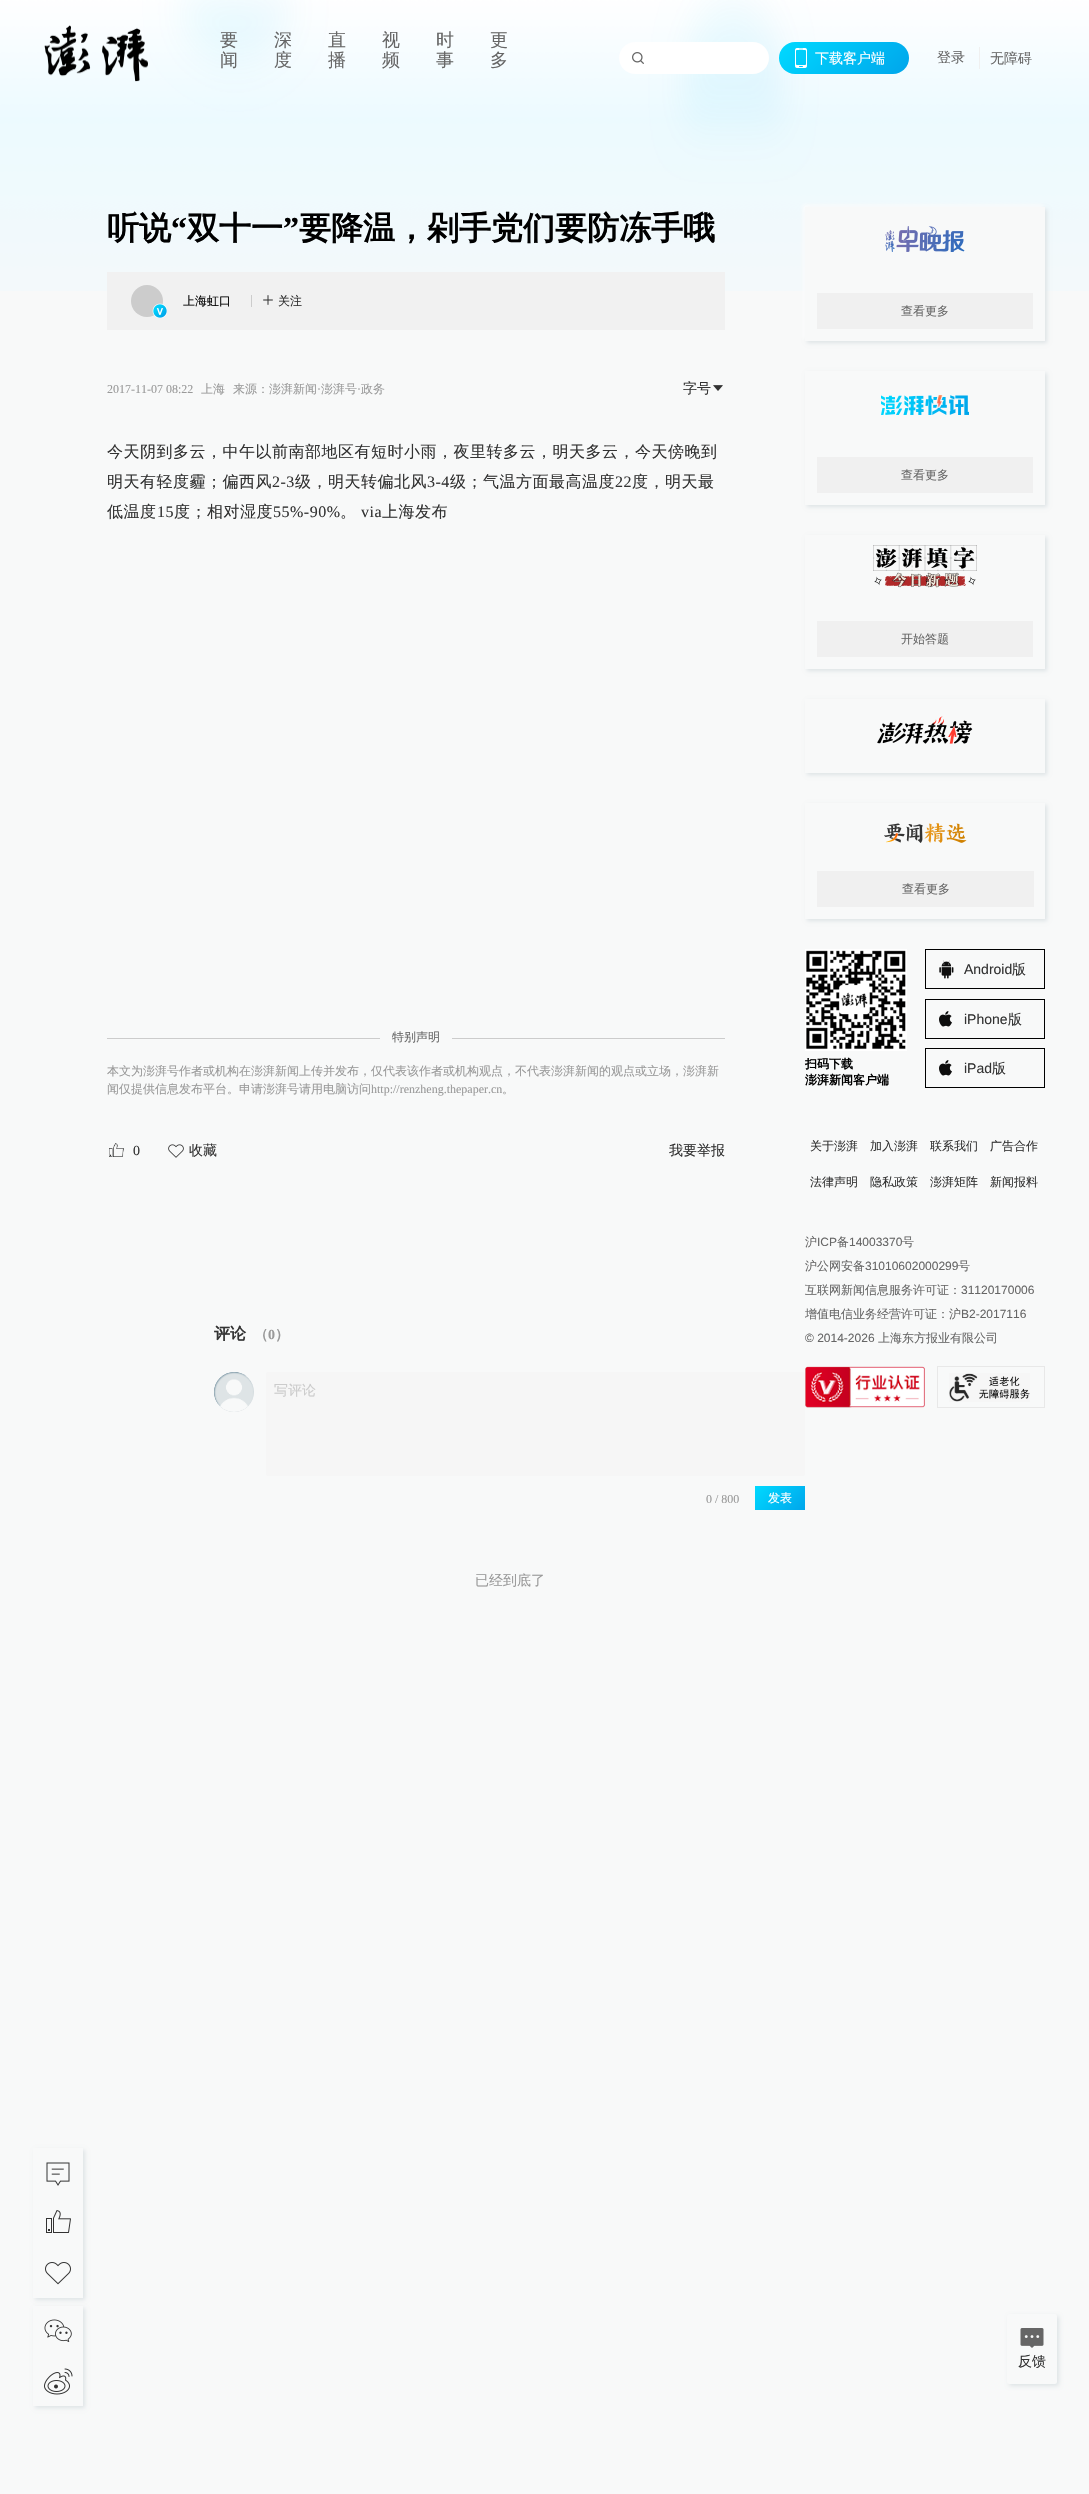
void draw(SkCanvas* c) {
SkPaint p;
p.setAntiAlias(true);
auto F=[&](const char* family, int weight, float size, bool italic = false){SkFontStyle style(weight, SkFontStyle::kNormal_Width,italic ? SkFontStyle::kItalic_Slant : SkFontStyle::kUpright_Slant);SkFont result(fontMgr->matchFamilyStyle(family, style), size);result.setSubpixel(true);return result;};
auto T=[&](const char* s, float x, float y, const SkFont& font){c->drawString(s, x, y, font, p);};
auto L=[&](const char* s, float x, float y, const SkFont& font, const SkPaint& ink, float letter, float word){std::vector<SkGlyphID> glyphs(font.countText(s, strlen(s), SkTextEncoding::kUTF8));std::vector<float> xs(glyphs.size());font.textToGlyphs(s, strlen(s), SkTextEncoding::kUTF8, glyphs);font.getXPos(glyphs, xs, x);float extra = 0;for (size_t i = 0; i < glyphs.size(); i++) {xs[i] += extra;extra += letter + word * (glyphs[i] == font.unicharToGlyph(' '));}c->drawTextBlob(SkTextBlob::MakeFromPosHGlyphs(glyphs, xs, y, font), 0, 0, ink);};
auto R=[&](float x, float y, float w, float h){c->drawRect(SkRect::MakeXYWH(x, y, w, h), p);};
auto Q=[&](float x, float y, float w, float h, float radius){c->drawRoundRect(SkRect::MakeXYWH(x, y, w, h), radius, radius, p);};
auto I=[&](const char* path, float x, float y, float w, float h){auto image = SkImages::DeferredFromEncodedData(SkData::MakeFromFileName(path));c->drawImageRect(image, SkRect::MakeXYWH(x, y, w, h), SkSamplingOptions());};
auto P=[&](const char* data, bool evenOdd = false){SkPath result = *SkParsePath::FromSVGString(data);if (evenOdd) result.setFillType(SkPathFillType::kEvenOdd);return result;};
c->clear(0xfff8f9f9);
I("1.png",0,0,1089,291);
I("2.png",44,25,104,57);
auto f1 = F("WenQuanYi Zen Hei",500,18);
p.setColor(0xff666666);
T("要",220,46,f1);
T("闻",220,66,f1);
T("深",274,46,f1);
T("度",274,66,f1);
T("直",328,46,f1);
T("播",328,66,f1);
T("视",382,46,f1);
T("频",382,66,f1);
T("时",436,46,f1);
T("事",436,66,f1);
T("更",490,46,f1);
T("多",490,66,f1);
p.setColor(0xffffffff);
Q(619,42,150,32,16);
I("3.png",632,52,12,12);
{
const SkColor colors[] = {0xff00d9ff,0xff00a5eb};
const float stops[] = {0,1};
const SkPoint ends[] = {{804,18}, {885,99}};
p.setShader(SkGradientShader::MakeLinear(ends, colors, stops, 2, SkTileMode::kClamp));
p.setAlpha(255);
}
Q(779,42,130,32,16);
I("4.png",795,48,12,20);
auto f2 = F("WenQuanYi Zen Hei",500,14);
p.setShader(nullptr);
p.setColor(0xffffffff);
T("下载客户端",815,63,f2);
p.setColor(0xff666666);
T("登录",937,62,f2);
p.setColor(0xfff0f0f0);
R(979,47,1,22);
p.setColor(0xff666666);
T("无障碍",990,63,f2);
auto f3 = F("WenQuanYi Zen Hei",700,32);
p.setColor(0xff000000);
T("听说",107,239,f3);
auto f4 = F("Liberation Serif",700,32);
T("“",171,239,f4);
T("双十一",187,239,f3);
T("”",283,239,f4);
T("要降温，剁手党们要防冻手哦",299,239,f3);
p.setColor(0xfff1f1f1);
R(107,272,618,58);
p.setColor(0xffcccccc);
c->drawCircle(147,301,16,p);
I("5.png",152,303,15,15);
auto f5 = F("WenQuanYi Zen Hei",500,12);
p.setColor(0xff000000);
T("上海虹口",183,305,f5);
p.setColor(0xffcccccc);
R(251,295,1,12);
I("6.png",263,295,10,10);
p.setColor(0xff333333);
T("关注",278,305,f5);
auto f6 = F("Liberation Serif",400,12);
p.setColor(0xff999999);
T("2017-11-07 08:22",107,393,f6);
T("上海",201,393,f5);
T("来源：澎湃新闻",233,393,f5);
T("·",317,393,f6);
T("澎湃号",321,393,f5);
T("·",357,393,f6);
T("政务",361,393,f5);
p.setColor(0xff333333);
T("字号",683,393,f2);
I("7.png",713,385,10,6);
auto f7 = F("WenQuanYi Zen Hei",500,16);
L("今天阴到多云，中午以前南部地区有短时小雨，夜里转多云，明天多云，今天傍晚到",107,457,f7,p,.5,0);
L("明天有轻度霾；偏西风",107,487,f7,p,.5,0);
auto f8 = F("Liberation Serif",400,16);
L("2-3",272,487,f8,p,.5,0);
L("级，明天转偏北风",295,487,f7,p,.5,0);
L("3-4",427,487,f8,p,.5,0);
L("级；气温方面最高温度",450,487,f7,p,.5,0);
L("22",615,487,f8,p,.5,0);
L("度，明天最",632,487,f7,p,.5,0);
L("低温度",107,517,f7,p,.5,0);
L("15",157,517,f8,p,.5,0);
L("度；相对湿度",174,517,f7,p,.5,0);
L("55%-90%",273,517,f8,p,.5,0);
L("。",340,517,f7,p,.5,0);
L("via",361,517,f8,p,.5,0);
L("上海发布",382,517,f7,p,.5,0);
p.setColor(0xffcccccc);
R(107,1038,273,1);
p.setColor(0xff666666);
T("特别声明",392,1041,f5);
p.setColor(0xffcccccc);
R(452,1038,273,1);
p.setColor(0xff999999);
T("本文为澎湃号作者或机构在澎湃新闻上传并发布，仅代表该作者或机构观点，不代表澎湃新闻的观点或立场，澎湃新",107,1075,f5);
T("闻仅提供信息发布平台。申请澎湃号请用电脑访问",107,1093,f5);
T("http://renzheng.thepaper.cn",371,1093,f6);
T("。",502,1093,f5);
I("8.png",109,1143,15,14);
auto f9 = F("Liberation Serif",400,14);
p.setColor(0xff333333);
T("0",133,1155,f9);
I("9.png",168,1144,16,14);
T("收藏",189,1155,f2);
T("我要举报",669,1155,f2);
auto f10 = F("WenQuanYi Zen Hei",700,16);
T("评论",214,1339,f10);
auto f11 = F("WenQuanYi Zen Hei",700,14);
p.setColor(0xff999999);
T("（",254,1339,f11);
auto f12 = F("Liberation Serif",700,14);
T("0",268,1339,f12);
T("）",275,1339,f11);
p.setColor(0xffdee4e6);
c->drawCircle(234,1392,20,p);
p.setColor(0xff7491a0);
c->drawPath(P("M235 1373c5 0 8.5 1.5 12 3.5c-8-6.5-20-6-27 1.5c-8 7.5-8 20.5 0 28c-9-11-4-33 15-33z"),p);
I("10.png",214,1372,40,40);
p.setColor(0xfff6f6f6);
Q(266,1372,539,104,2);
p.setColor(0xffcccccc);
T("写评论",274,1395,f2);
p.setColor(0xff999999);
T("0 / 800",706,1503,f6);
{
const SkColor colors[] = {0xff00d9ff,0xff00a5eb};
const float stops[] = {0,1};
const SkPoint ends[] = {{762,1480}, {799,1517}};
p.setShader(SkGradientShader::MakeLinear(ends, colors, stops, 2, SkTileMode::kClamp));
p.setAlpha(255);
}
R(755,1486,50,24);
p.setShader(nullptr);
p.setColor(0xffffffff);
T("发表",768,1502,f5);
p.setColor(0xff999999);
T("已经到底了",475,1585,f2);
p.setColor(0xffffffff);
p.setMaskFilter(SkMaskFilter::MakeBlur(kNormal_SkBlurStyle, 2));
c->drawRect(SkRect::MakeXYWH(803,205,240,134),p);
p.setMaskFilter(nullptr);
p.setColor(0xffdee4e6);
p.setMaskFilter(SkMaskFilter::MakeBlur(kNormal_SkBlurStyle, 2));
c->drawRect(SkRect::MakeXYWH(807,209,240,134),p);
p.setMaskFilter(nullptr);
p.setColor(0xfff8f9f9);
R(805,207,240,134);
I("11.png",885,226,80,26);
p.setColor(0xfff0f0f0);
R(817,293,216,36);
p.setColor(0xff666666);
T("查看更多",901,315,f5);
c->save();
c->clipPath(P("M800 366h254v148h-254zm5 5h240v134h-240z",true),true);
p.setColor(0xffdee4e6);
p.setMaskFilter(SkMaskFilter::MakeBlur(kNormal_SkBlurStyle, 2));
c->drawRect(SkRect::MakeXYWH(807,373,240,134),p);
p.setMaskFilter(nullptr);
c->restore();
I("12.png",881,395,88,20);
p.setColor(0xfff0f0f0);
R(817,457,216,36);
p.setColor(0xff666666);
T("查看更多",901,479,f5);
c->save();
c->clipPath(P("M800 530h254v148h-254zm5 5h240v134h-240z",true),true);
p.setColor(0xffdee4e6);
p.setMaskFilter(SkMaskFilter::MakeBlur(kNormal_SkBlurStyle, 2));
c->drawRect(SkRect::MakeXYWH(807,537,240,134),p);
p.setMaskFilter(nullptr);
c->restore();
I("13.png",873,545,104,43);
p.setColor(0xfff0f0f0);
R(817,621,216,36);
p.setColor(0xff666666);
T("开始答题",901,643,f5);
c->save();
c->clipPath(P("M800 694h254v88h-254zm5 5h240v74h-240z",true),true);
p.setColor(0xffdee4e6);
p.setMaskFilter(SkMaskFilter::MakeBlur(kNormal_SkBlurStyle, 2));
c->drawRect(SkRect::MakeXYWH(807,701,240,74),p);
p.setMaskFilter(nullptr);
c->restore();
I("14.png",877,716,96,28);
c->save();
c->clipPath(P("M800 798h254v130h-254zm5 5h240v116h-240z",true),true);
p.setMaskFilter(SkMaskFilter::MakeBlur(kNormal_SkBlurStyle, 2));
c->drawRect(SkRect::MakeXYWH(807,805,240,116),p);
p.setMaskFilter(nullptr);
c->restore();
I("15.png",884,823,83,20);
p.setColor(0xfff0f0f0);
R(817,871,217,36);
p.setColor(0xff666666);
T("查看更多",902,893,f5);
I("16.png",805,949,102,102);
auto f13 = F("WenQuanYi Zen Hei",700,12);
p.setColor(0xff000000);
T("扫码下载",805,1068,f13);
T("澎湃新闻客户端",805,1084,f13);
p.setStroke(true);
p.setStrokeWidth(1);
c->drawRect(SkRect::MakeXYWH(925.5,949.5,119,39),p);
I("17.png",939,960,15,19);
auto f14 = F("Liberation Sans",400,14);
p.setStroke(false);
p.setColor(0xff333333);
T("Android",964,974,f14);
T("版",1012,974,f2);
p.setStroke(true);
p.setColor(0xff000000);
c->drawRect(SkRect::MakeXYWH(925.5,999.5,119,39),p);
I("18.png",939,1011,13,16);
p.setStroke(false);
p.setColor(0xff333333);
T("iPhone",964,1024,f14);
T("版",1008,1024,f2);
p.setStroke(true);
p.setColor(0xff000000);
c->drawRect(SkRect::MakeXYWH(925.5,1048.5,119,39),p);
I("18.png",939,1060,13,16);
p.setStroke(false);
p.setColor(0xff333333);
T("iPad",964,1073,f14);
T("版",992,1073,f2);
T("关于澎湃",810,1150,f5);
T("加入澎湃",870,1150,f5);
T("联系我们",930,1150,f5);
T("广告合作",990,1150,f5);
T("法律声明",810,1186,f5);
T("隐私政策",870,1186,f5);
T("澎湃矩阵",930,1186,f5);
T("新闻报料",990,1186,f5);
p.setColor(0xff666666);
T("沪",805,1246,f5);
auto f15 = F("Liberation Sans",400,12);
T("ICP",817,1246,f15);
T("备",837,1246,f5);
T("14003370",849,1246,f15);
T("号",902,1246,f5);
T("沪公网安备",805,1270,f5);
T("31010602000299",865,1270,f15);
T("号",958,1270,f5);
T("互联网新闻信息服务许可证：",805,1294,f5);
T("31120170006",961,1294,f15);
T("增值电信业务经营许可证：沪",805,1318,f5);
T("B2-2017116",961,1318,f15);
T("© 2014-2026",805,1342,f15);
T("上海东方报业有限公司",878,1342,f5);
I("19.png",805,1366,120,42);
p.setStroke(true);
p.setColor(0xffe8e8e8);
c->drawRect(SkRect::MakeXYWH(937.5,1366.5,107,41),p);
I("20.png",949,1373,81,29);
c->save();
c->clipPath(P("M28 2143h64v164h-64zm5 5h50v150h-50z",true),true);
p.setStroke(false);
p.setColor(0xffdee4e6);
p.setMaskFilter(SkMaskFilter::MakeBlur(kNormal_SkBlurStyle, 2));
c->drawRect(SkRect::MakeXYWH(35,2150,50,150),p);
p.setMaskFilter(nullptr);
c->restore();
I("21.png",46,2162,24,24);
I("22.png",46,2210,25,23);
I("23.png",45,2262,26,23);
c->save();
c->clipPath(P("M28 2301h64v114h-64zm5 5h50v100h-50z",true),true);
p.setMaskFilter(SkMaskFilter::MakeBlur(kNormal_SkBlurStyle, 2));
c->drawRect(SkRect::MakeXYWH(35,2308,50,100),p);
p.setMaskFilter(nullptr);
c->restore();
I("24.png",44,2319,28,23);
I("25.png",44,2368,29,27);
p.setMaskFilter(SkMaskFilter::MakeBlur(kNormal_SkBlurStyle, 2));
c->drawRoundRect(SkRect::MakeXYWH(1009,2316,50,70),2,2,p);
p.setMaskFilter(nullptr);
p.setColor(0xfff8f9f9);
Q(1007,2314,50,70,2);
I("26.png",1020,2328,24,20);
p.setColor(0xff333333);
T("反馈",1018,2366,f2);
}
